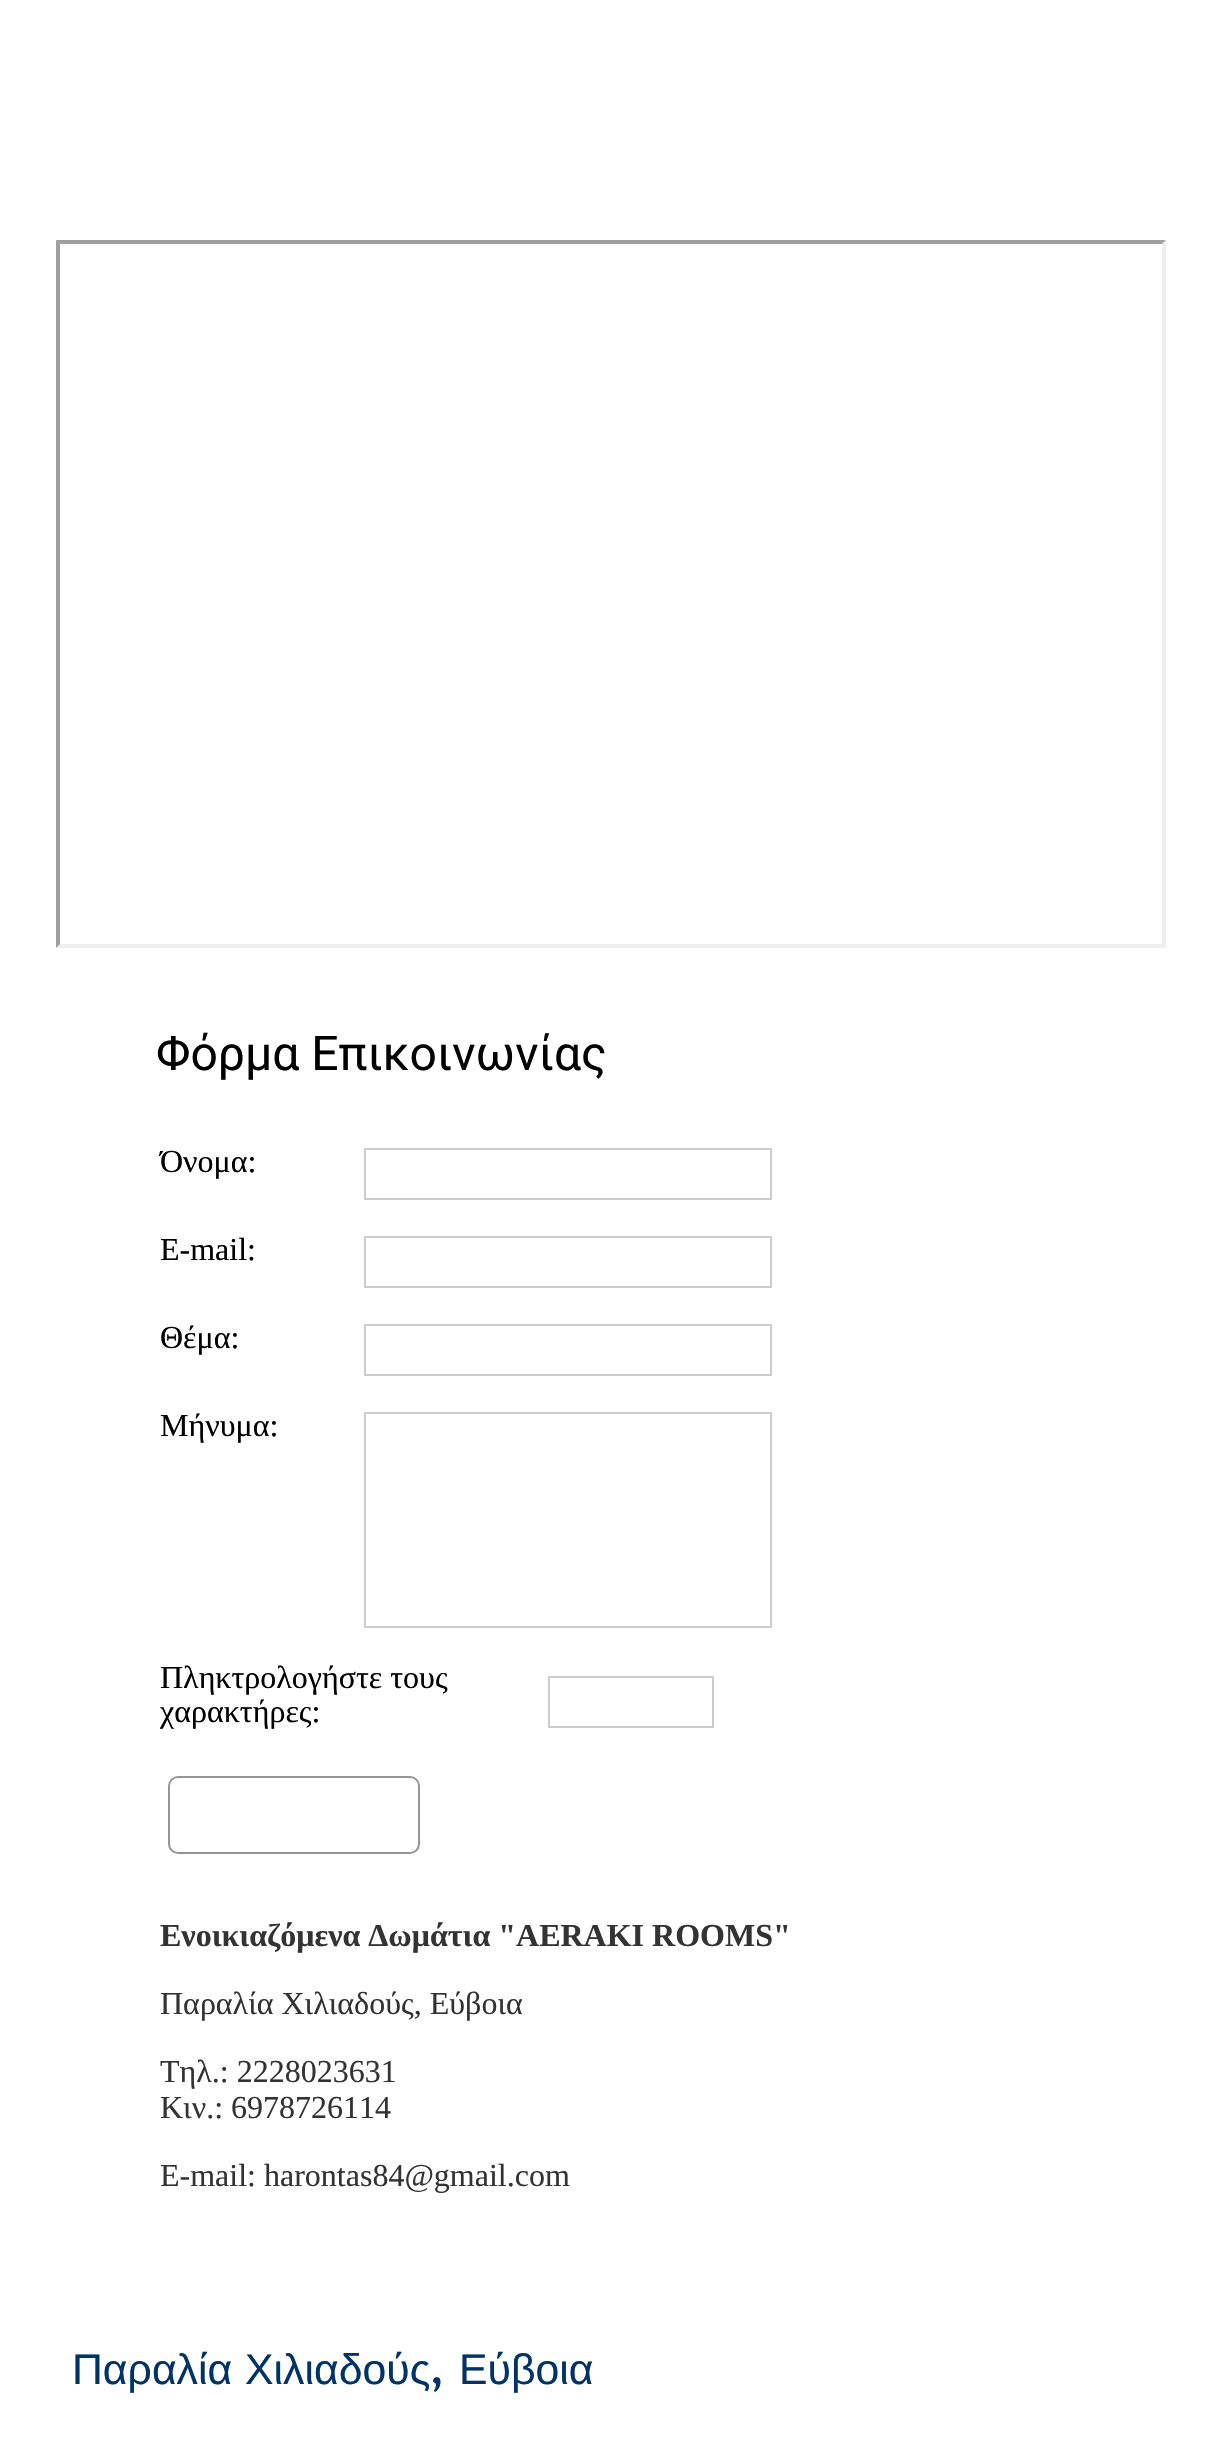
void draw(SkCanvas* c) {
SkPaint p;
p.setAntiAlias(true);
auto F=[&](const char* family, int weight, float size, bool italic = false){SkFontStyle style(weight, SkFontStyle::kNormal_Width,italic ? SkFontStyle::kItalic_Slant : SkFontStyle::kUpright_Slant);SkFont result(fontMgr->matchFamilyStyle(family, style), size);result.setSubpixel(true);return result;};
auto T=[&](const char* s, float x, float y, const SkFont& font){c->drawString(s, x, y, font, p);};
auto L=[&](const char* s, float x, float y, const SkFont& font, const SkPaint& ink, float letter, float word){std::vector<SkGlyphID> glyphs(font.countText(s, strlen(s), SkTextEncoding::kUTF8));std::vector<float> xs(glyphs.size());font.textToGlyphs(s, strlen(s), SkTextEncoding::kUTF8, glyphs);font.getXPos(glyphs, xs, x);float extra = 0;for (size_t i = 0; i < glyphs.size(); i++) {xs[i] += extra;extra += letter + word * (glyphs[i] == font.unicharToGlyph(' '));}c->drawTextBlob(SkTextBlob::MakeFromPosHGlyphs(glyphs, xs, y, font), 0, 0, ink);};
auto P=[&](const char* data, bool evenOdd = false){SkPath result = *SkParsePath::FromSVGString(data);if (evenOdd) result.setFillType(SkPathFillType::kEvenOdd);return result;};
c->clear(0xffffffff);
p.setColor(0xff9f9f9f);
c->drawPath(P("M56 240h1110l-4 4h-1102z"),p);
p.setColor(0xffeeeeee);
c->drawPath(P("M1166 240v708l-4-4v-700z"),p);
c->drawPath(P("M1166 948h-1110l4-4h1102z"),p);
p.setColor(0xff9f9f9f);
c->drawPath(P("M56 948v-708l4 4v700z"),p);
auto f1 = F("Roboto",400,48);
p.setColor(0xff000000);
T("Φόρμα Επικοινωνίας",156,1070,f1);
auto f2 = F("Liberation Serif",400,32);
T("Όνομα:",160,1172,f2);
p.setStroke(true);
p.setStrokeWidth(2);
p.setColor(0xffcccccc);
c->drawRect(SkRect::MakeXYWH(365,1149,406,50),p);
p.setStroke(false);
p.setColor(0xff000000);
T("E-mail:",160,1260,f2);
p.setStroke(true);
p.setColor(0xffcccccc);
c->drawRect(SkRect::MakeXYWH(365,1237,406,50),p);
p.setStroke(false);
p.setColor(0xff000000);
T("Θέμα:",160,1348,f2);
p.setStroke(true);
p.setColor(0xffcccccc);
c->drawRect(SkRect::MakeXYWH(365,1325,406,50),p);
p.setStroke(false);
p.setColor(0xff000000);
T("Μήνυμα:",160,1436,f2);
p.setStroke(true);
p.setColor(0xffcccccc);
c->drawRect(SkRect::MakeXYWH(365,1413,406,214),p);
p.setStroke(false);
p.setColor(0xff000000);
T("Πληκτρολογήστε τους",160,1688,f2);
T("χαρακτήρες:",160,1722,f2);
p.setStroke(true);
p.setColor(0xffcccccc);
c->drawRect(SkRect::MakeXYWH(549,1677,164,50),p);
p.setColor(0xff959595);
c->drawRoundRect(SkRect::MakeXYWH(169,1777,250,76),9,9,p);
auto f3 = F("Liberation Serif",700,32);
p.setStroke(false);
p.setColor(0xff333333);
T("Ενοικιαζόμενα Δωμάτια \"AERAKI ROOMS\"",160,1946,f3);
T("Παραλία Χιλιαδούς, Εύβοια",160,2014,f2);
T("Τηλ.: 2228023631",160,2082,f2);
T("Κιν.: 6978726114",160,2118,f2);
T("E-mail: harontas84@gmail.com",160,2186,f2);
auto f4 = F("Liberation Sans",400,42.75);
p.setColor(0xff003366);
L("Παραλία Χιλιαδούς",72,2384,f4,p,0,1);
auto f5 = F("Quando",400,42.75);
T(",",430,2384,f5);
T("Εύβοια",459,2384,f4);
}
